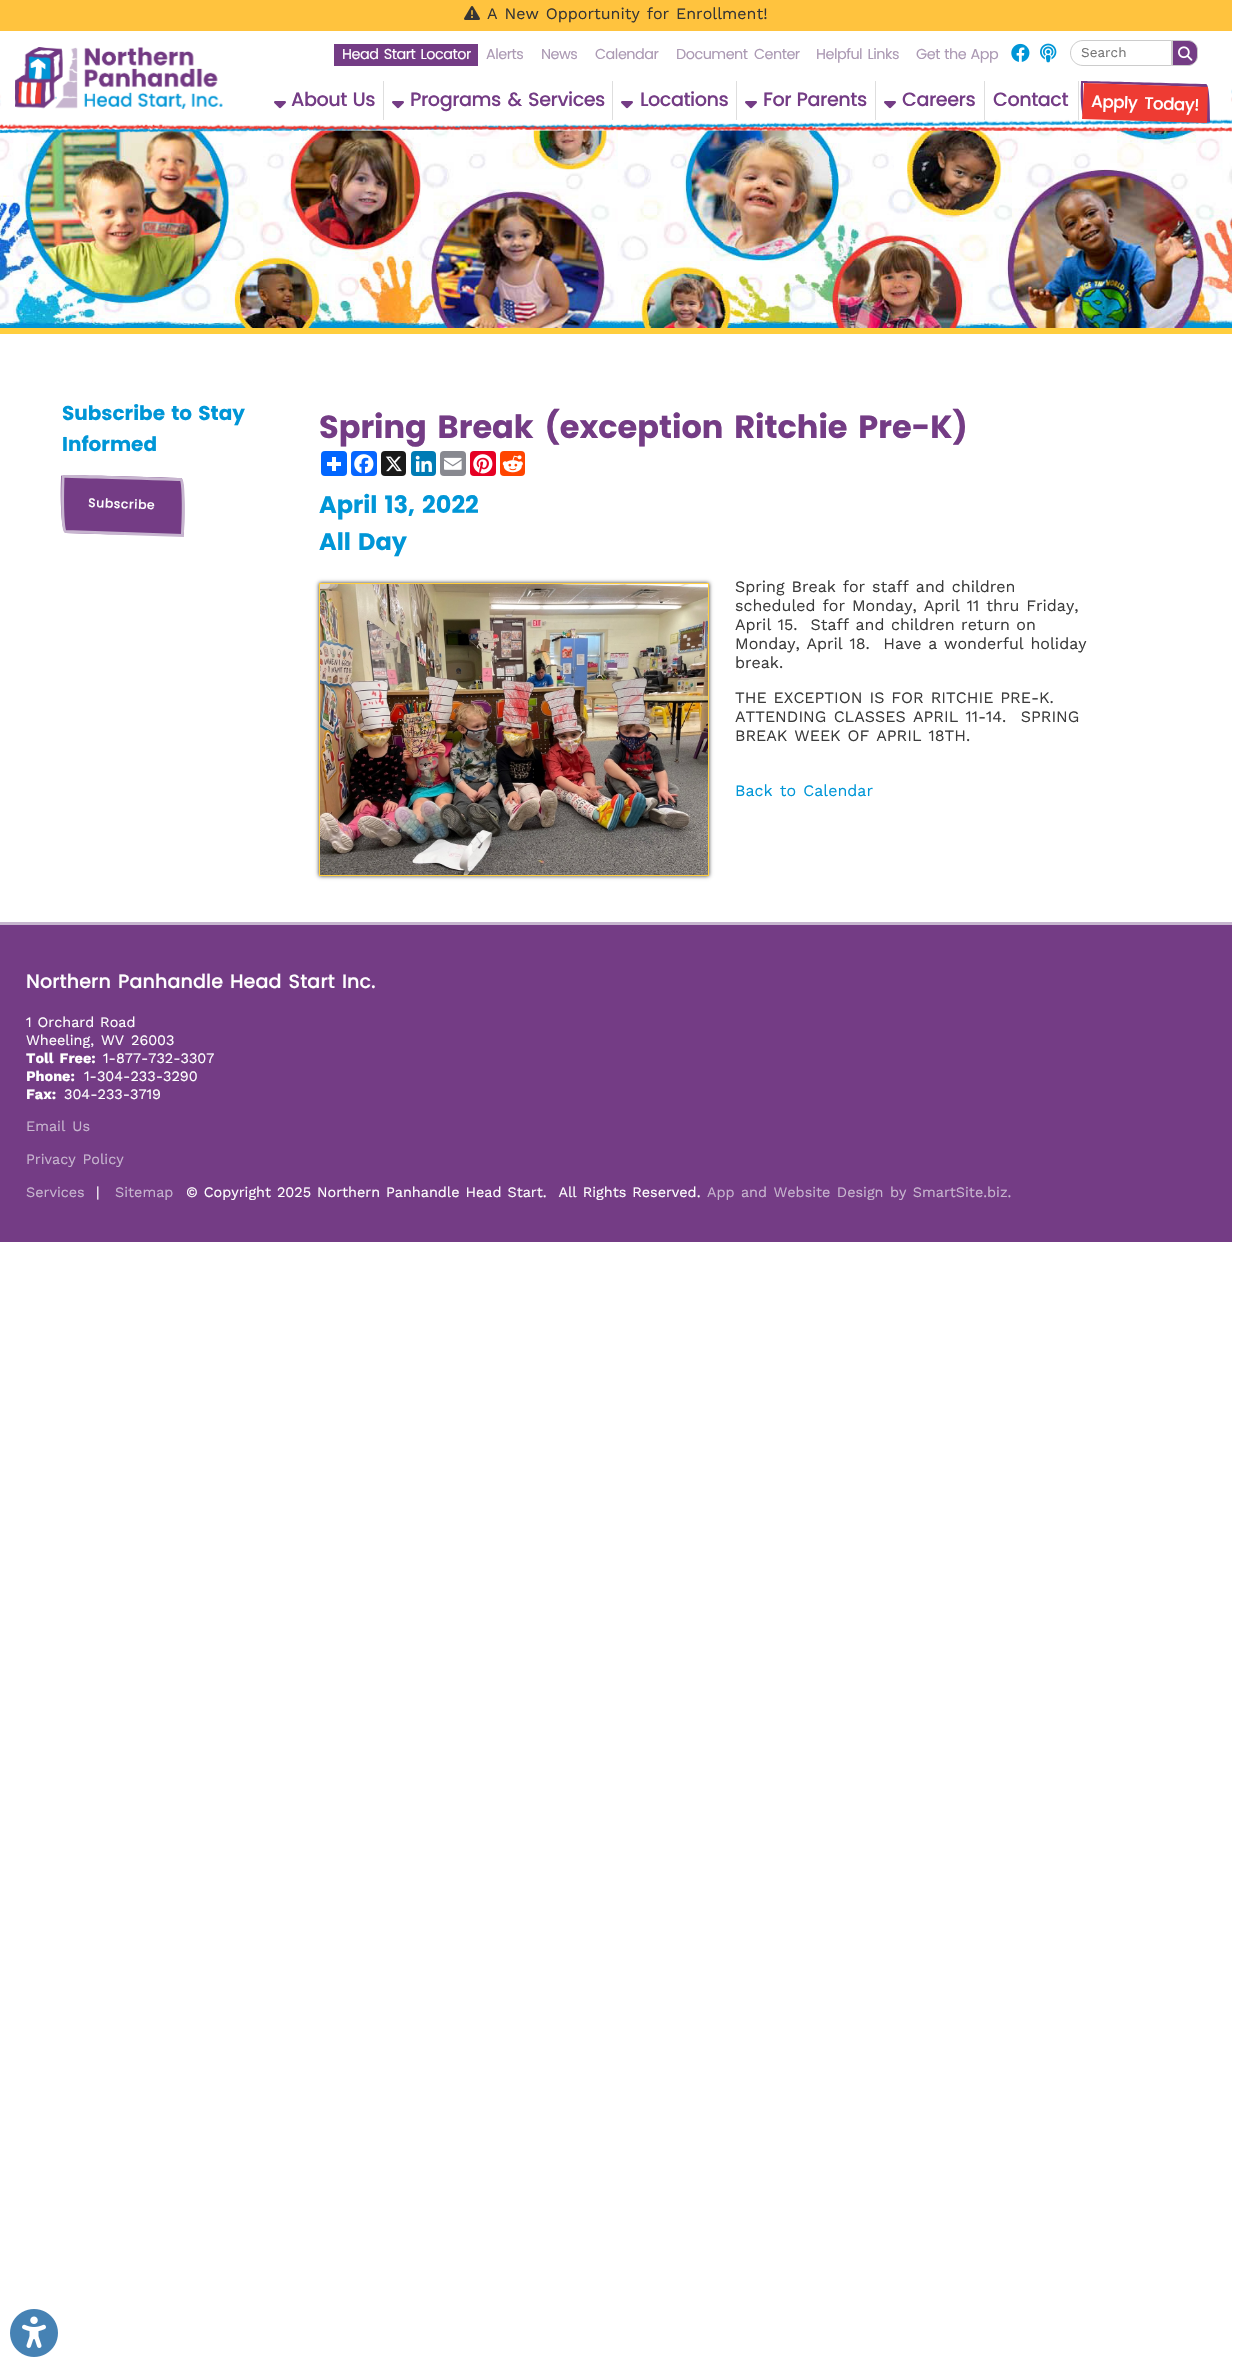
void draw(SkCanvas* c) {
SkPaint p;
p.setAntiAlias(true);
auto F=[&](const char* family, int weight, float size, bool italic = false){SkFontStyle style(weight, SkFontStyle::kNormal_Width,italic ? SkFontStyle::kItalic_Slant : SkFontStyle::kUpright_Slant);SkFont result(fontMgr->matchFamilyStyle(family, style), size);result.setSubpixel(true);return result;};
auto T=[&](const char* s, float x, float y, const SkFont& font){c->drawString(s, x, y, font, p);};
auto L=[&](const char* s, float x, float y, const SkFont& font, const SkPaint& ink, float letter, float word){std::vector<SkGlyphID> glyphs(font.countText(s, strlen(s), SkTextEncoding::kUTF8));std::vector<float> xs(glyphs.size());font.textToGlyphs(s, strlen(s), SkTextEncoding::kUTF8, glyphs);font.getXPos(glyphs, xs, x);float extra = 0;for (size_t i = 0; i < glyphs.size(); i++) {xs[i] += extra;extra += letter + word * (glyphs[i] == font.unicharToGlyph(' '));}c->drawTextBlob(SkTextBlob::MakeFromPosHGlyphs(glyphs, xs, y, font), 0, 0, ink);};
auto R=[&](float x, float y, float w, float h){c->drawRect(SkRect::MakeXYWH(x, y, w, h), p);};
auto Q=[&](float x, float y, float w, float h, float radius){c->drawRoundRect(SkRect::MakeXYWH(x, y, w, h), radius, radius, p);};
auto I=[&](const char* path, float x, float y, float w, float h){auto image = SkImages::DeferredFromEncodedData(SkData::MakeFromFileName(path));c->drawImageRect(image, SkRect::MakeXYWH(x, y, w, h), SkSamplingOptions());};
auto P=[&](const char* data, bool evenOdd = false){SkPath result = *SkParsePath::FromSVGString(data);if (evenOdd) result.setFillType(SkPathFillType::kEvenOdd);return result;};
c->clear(0xffffffff);
I("1.png",0,88,1232,15);
p.setColor(0xffffc33e);
R(0,0,1232,31);
I("2.png",464,6,16,14);
auto f1 = F("Work Sans",400,16);
p.setColor(0xff353535);
L("A New Opportunity for Enrollment!",487,19,f1,p,0,1.5);
I("9.png",0,103,1232,225);
I("3.png",0,88,1232,46);
I("4.png",15,47,208,62);
p.setColor(0xff743c85);
R(334,44,144,22);
auto f2 = F("Poppins",400,14.4);
p.setColor(0xffffffff);
L("Head Start Locator",342,59,f2,p,-.5,2);
p.setColor(0xffac9ab4);
L("Alerts",486,59,f2,p,-.5,0);
L("News",541,59,f2,p,-.5,0);
L("Calendar",595,59,f2,p,-.5,0);
L("Document Center",676,59,f2,p,-.5,3);
L("Helpful Links",816,59,f2,p,-.5,2);
L("Get the App",916,59,f2,p,-.5,1);
I("5.png",1011,43,19,19);
I("6.png",1040,43,17,20);
p.setStroke(true);
p.setStrokeWidth(1);
p.setColor(0xffcccccc);
c->drawPath(P("M1083 40.5h88.5v25h-88.5c-7 0-12.5-5.5-12.5-12.5c0-7 5.5-12.5 12.5-12.5z"),p);
auto f3 = F("Work Sans",400,13.5);
p.setStroke(false);
p.setColor(0xff757575);
T("Search",1081,57,f3);
p.setColor(0xff743c85);
c->drawPath(P("M1172.5 40.5h15.5c5 0 9.5 4.5 9.5 9.5v6c0 5-4.5 9.5-9.5 9.5h-15.5z"),p);
p.setStroke(true);
p.setColor(0xffcccccc);
c->drawPath(P("M1172.5 40.5h15.5c5 0 9.5 4.5 9.5 9.5v6c0 5-4.5 9.5-9.5 9.5h-15.5z"),p);
I("7.png",1178,46,15,15);
p.setStroke(false);
p.setColor(0xffdedede);
R(383,81,1,39);
I("8.png",274,101,12,8);
auto f4 = F("Poppins",500,19.25);
p.setColor(0xff743c85);
L("About Us",291,106,f4,p,-.5,1);
p.setColor(0xffdedede);
R(612,81,1,39);
I("8.png",392,101,12,8);
p.setColor(0xff743c85);
L("Programs & Services",410,106,f4,p,-.5,2);
p.setColor(0xffdedede);
R(736,81,1,39);
I("8.png",621,101,12,8);
p.setColor(0xff743c85);
L("Locations",640,106,f4,p,-.5,0);
p.setColor(0xffdedede);
R(875,81,1,39);
I("8.png",745,101,12,8);
p.setColor(0xff743c85);
L("For Parents",763,106,f4,p,-.5,1);
p.setColor(0xffdedede);
R(984,81,1,39);
I("8.png",884,101,12,8);
p.setColor(0xff743c85);
L("Careers",902,106,f4,p,-.5,0);
p.setColor(0xffdedede);
R(1078,81,1,39);
p.setColor(0xff743c85);
L("Contact",993,106,f4,p,-.5,0);
c->drawPath(P("M1202 84h4c3 0 4 17 4 37v1c0 1-56 0-124-3c-4 0-6-16-5-36v-2c0 0 54 1 121 3zm0 3h4c1 0 1 15 1 33v2c0 1-55 0-121-3c-2 0-3-16-3-36z",true),p);
p.setColor(0xffee3b33);
c->drawPath(P("M1084 83l124 4l-1 36l-125-4z"),p);
auto f5 = F("Poppins",500,16.75);
p.setColor(0xffffffff);
c->save();
c->rotate(2,1091,107);
L("Apply Today!",1091,107,f5,p,-.5,3);
c->restore();
p.setColor(0xffffce3e);
R(0,328,1232,6);
auto f6 = F("Poppins",700,20);
p.setColor(0xff0096d7);
L("Subscribe to Stay",62,420,f6,p,0,2);
T("Informed",62,451,f6);
p.setColor(0xff743c85);
c->drawPath(P("M178 478h3c3 0 4 25 3 55v2c0 1-53 0-118-2c-4 0-6-25-5-55v-2c1-1 53 0 117 2z"),p);
p.setStroke(true);
p.setStrokeWidth(2.9);
p.setColor(0xffc7b5cf);
c->drawPath(P("M177.5 479.5h3.5c2 .5 3 24 1.5 53v3l-117-4c-2.5 0-3.5-24-2.5-53.5v-1.5c0-.5 51.5 1 114.5 3z"),p);
auto f7 = F("Poppins",500,12.5);
p.setStroke(false);
p.setColor(0xffffffff);
c->save();
c->rotate(2,88,507);
L("Subscribe",88,507,f7,p,.5,0);
c->restore();
auto f8 = F("Poppins",700,32);
p.setColor(0xff743c85);
L("Spring Break (exception Ritchie Pre-K)",319,438,f8,p,0,4);
p.setColor(0xff0166ff);
Q(321,451,26,25,4);
p.setColor(0xffffffff);
R(332,457,4,14);
R(327,462,14,4);
p.setColor(0xff0866ff);
Q(351,451,26,25,4);
I("10.png",354,454,20,20);
p.setColor(0xff1a1a1a);
Q(381,451,25,25,4);
I("11.png",385,456,17,16);
p.setColor(0xff007bb5);
Q(411,451,25,25,4);
I("12.png",415,455,17,17);
p.setColor(0xff888990);
Q(440,451,26,25,4);
I("13.png",444,457,18,13);
p.setColor(0xffe60023);
Q(470,451,26,25,4);
I("14.png",473,454,20,20);
p.setColor(0xffff4500);
Q(500,451,25,25,4);
I("15.png",502,455,21,18);
auto f9 = F("Poppins",700,24);
p.setColor(0xff0096d7);
L("April 13, 2022",319,513,f9,p,0,2);
L("All Day",319,550,f9,p,0,2);
p.setColor(0xff333333);
p.setMaskFilter(SkMaskFilter::MakeBlur(kNormal_SkBlurStyle, 2));
c->drawRect(SkRect::MakeXYWH(319,583,390,293),p);
p.setMaskFilter(nullptr);
p.setStroke(true);
p.setStrokeWidth(1);
p.setColor(0xffffce3e);
c->drawRect(SkRect::MakeXYWH(319.5,583.5,389,292),p);
I("16.png",320,584,388,291);
p.setStroke(false);
p.setColor(0xff3c3c3c);
L("Spring Break for staff and children",735,592,f1,p,0,1.5);
L("scheduled for Monday, April 11 thru Friday,",735,611,f1,p,0,1.5);
L("April 15.  Staff and children return on",735,630,f1,p,0,1);
L("Monday, April 18.  Have a wonderful holiday",735,649,f1,p,0,1.25);
T("break.",735,668,f1);
L("THE EXCEPTION IS FOR RITCHIE PRE-K.",735,703,f1,p,0,1.5);
L("ATTENDING CLASSES APRIL 11-14.  SPRING",735,722,f1,p,0,1.75);
L("BREAK WEEK OF APRIL 18TH.",735,741,f1,p,0,1.5);
p.setColor(0xff0096d7);
L("Back to Calendar",735,796,f1,p,0,1.75);
p.setColor(0xff743c85);
R(0,925,1232,317);
p.setColor(0xffc7b5cf);
R(0,922,1232,3);
p.setColor(0xffffffff);
L("Northern Panhandle Head Start Inc.",26,988,f4,p,0,2);
auto f10 = F("Work Sans",400,14.4);
L("1 Orchard Road",26,1027,f10,p,0,1);
L("Wheeling, WV 26003",26,1045,f10,p,0,2);
auto f11 = F("Work Sans",700,14.4);
L("Toll Free:",26,1063,f11,p,0,2);
T("1-877-732-3307",103,1063,f10);
T("Phone:",26,1081,f11);
T("1-304-233-3290",84,1081,f10);
T("Fax:",26,1099,f11);
T("304-233-3719",64,1099,f10);
p.setColor(0xffc7b5cf);
L("Email Us",26,1131,f10,p,0,2);
L("Privacy Policy",26,1164,f10,p,0,2);
T("Services",26,1197,f10);
p.setColor(0xffffffff);
T("|",96,1197,f10);
p.setColor(0xffc7b5cf);
T("Sitemap",115,1197,f10);
p.setColor(0xffffffff);
L("© Copyright 2025 Northern Panhandle Head Start.  All Rights Reserved.",186,1197,f10,p,0,1);
p.setColor(0xffc7b5cf);
L("App and Website Design by SmartSite.biz.",707,1197,f10,p,0,1.5);
I("17.png",10,2309,48,48);
}
